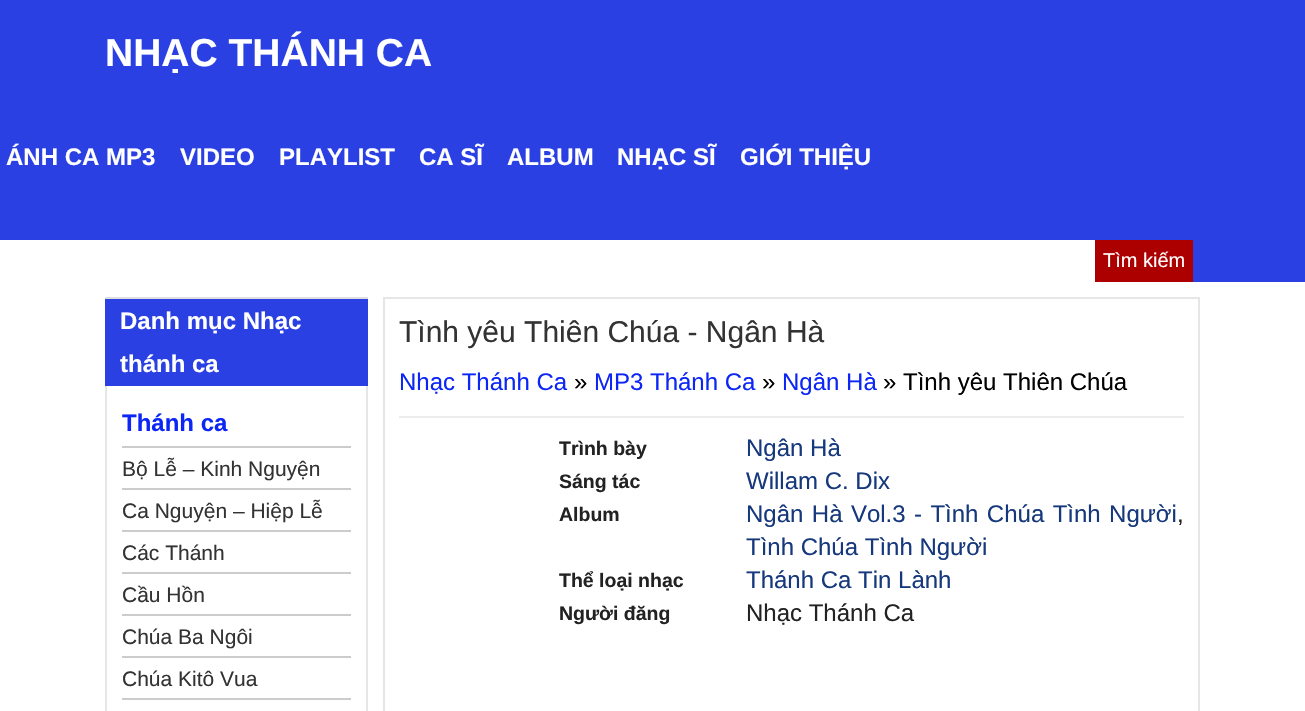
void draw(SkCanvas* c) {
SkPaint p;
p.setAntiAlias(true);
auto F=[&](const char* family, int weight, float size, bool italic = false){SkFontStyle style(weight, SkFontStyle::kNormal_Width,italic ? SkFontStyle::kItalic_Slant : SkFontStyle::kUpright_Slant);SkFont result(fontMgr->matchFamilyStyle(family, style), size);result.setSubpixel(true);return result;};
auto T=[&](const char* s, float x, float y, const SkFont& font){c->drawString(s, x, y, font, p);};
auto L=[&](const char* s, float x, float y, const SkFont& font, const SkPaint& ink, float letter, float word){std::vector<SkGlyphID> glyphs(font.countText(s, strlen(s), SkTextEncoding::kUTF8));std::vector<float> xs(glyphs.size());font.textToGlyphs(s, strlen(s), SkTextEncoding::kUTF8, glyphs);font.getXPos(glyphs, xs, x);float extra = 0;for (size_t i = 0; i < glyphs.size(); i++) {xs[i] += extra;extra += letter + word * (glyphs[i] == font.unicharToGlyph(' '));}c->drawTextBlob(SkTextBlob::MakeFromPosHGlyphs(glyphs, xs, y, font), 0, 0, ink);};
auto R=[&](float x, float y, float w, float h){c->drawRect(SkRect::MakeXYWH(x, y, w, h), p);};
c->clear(0xffffffff);
p.setColor(0xff2a40e2);
R(0,0,1305,282);
auto f1 = F("Liberation Sans",700,39);
p.setColor(0xffffffff);
T("NHẠC THÁNH CA",105,66,f1);
auto f2 = F("Liberation Sans",700,24);
T("ÁNH CA MP3",6,165,f2);
T("VIDEO",180,165,f2);
T("PLAYLIST",279,165,f2);
T("CA SĨ",419,165,f2);
T("ALBUM",507,165,f2);
T("NHẠC SĨ",617,165,f2);
T("GIỚI THIỆU",740,165,f2);
R(0,240,1095,42);
p.setColor(0xffac0000);
R(1095,240,98,42);
auto f3 = F("Liberation Sans",400,20);
p.setColor(0xffffffff);
T("Tìm kiếm",1103,267,f3);
p.setColor(0xff2a40e2);
R(105,299,263,87);
p.setColor(0xffdedede);
R(105,297,263,2);
p.setColor(0xffffffff);
T("Danh mục Nhạc",120,329,f2);
T("thánh ca",120,372,f2);
p.setColor(0xffe6e6e6);
R(366,386,2,325);
R(105,386,2,325);
p.setColor(0xffcccccc);
R(122,446,229,2);
c->save();
c->clipRect(SkRect::MakeXYWH(122,401,229,45));
p.setColor(0xff0c26f6);
T("Thánh ca",122,431,f2);
c->restore();
p.setColor(0xffcccccc);
R(122,488,229,2);
auto f4 = F("Liberation Sans",400,21);
p.setColor(0xff333333);
T("Bộ Lễ – Kinh Nguyện",122,476,f4);
p.setColor(0xffcccccc);
R(122,530,229,2);
p.setColor(0xff333333);
T("Ca Nguyện – Hiệp Lễ",122,518,f4);
p.setColor(0xffcccccc);
R(122,572,229,2);
p.setColor(0xff333333);
T("Các Thánh",122,560,f4);
p.setColor(0xffcccccc);
R(122,614,229,2);
p.setColor(0xff333333);
T("Cầu Hồn",122,602,f4);
p.setColor(0xffcccccc);
R(122,656,229,2);
p.setColor(0xff333333);
T("Chúa Ba Ngôi",122,644,f4);
p.setColor(0xffcccccc);
R(122,698,229,2);
p.setColor(0xff333333);
T("Chúa Kitô Vua",122,686,f4);
p.setStroke(true);
p.setStrokeWidth(2);
p.setColor(0xffe6e6e6);
c->drawRect(SkRect::MakeXYWH(384,298,815,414),p);
auto f5 = F("Liberation Sans",400,30);
p.setStroke(false);
p.setColor(0xff333333);
T("Tình yêu Thiên Chúa - Ngân Hà",399,342,f5);
auto f6 = F("Liberation Sans",400,24);
p.setColor(0xff0c26f6);
T("Nhạc Thánh Ca",399,390,f6);
p.setColor(0xff000000);
T("»",574,390,f6);
p.setColor(0xff0c26f6);
T("MP3 Thánh Ca",594,390,f6);
p.setColor(0xff000000);
T("»",762,390,f6);
p.setColor(0xff0c26f6);
T("Ngân Hà",782,390,f6);
p.setColor(0xff000000);
T("» Tình yêu Thiên Chúa",883,390,f6);
p.setColor(0xffededed);
R(399,416,785,2);
auto f7 = F("Liberation Sans",700,19.5);
p.setColor(0xff222222);
T("Trình bày",559,455,f7);
p.setColor(0xff16387c);
T("Ngân Hà",746,456,f6);
p.setColor(0xff222222);
T("Sáng tác",559,488,f7);
p.setColor(0xff16387c);
T("Willam C. Dix",746,489,f6);
p.setColor(0xff222222);
T("Album",559,521,f7);
p.setColor(0xff16387c);
L("Ngân Hà Vol.3 - Tình Chúa Tình Người",746,522,f6,p,0,1.75);
p.setColor(0xff222222);
T(",",1177,522,f6);
p.setColor(0xff16387c);
T("Tình Chúa Tình Người",746,555,f6);
p.setColor(0xff222222);
T("Thể loại nhạc",559,587,f7);
p.setColor(0xff16387c);
T("Thánh Ca Tin Lành",746,588,f6);
p.setColor(0xff222222);
T("Người đăng",559,620,f7);
T("Nhạc Thánh Ca",746,621,f6);
}
